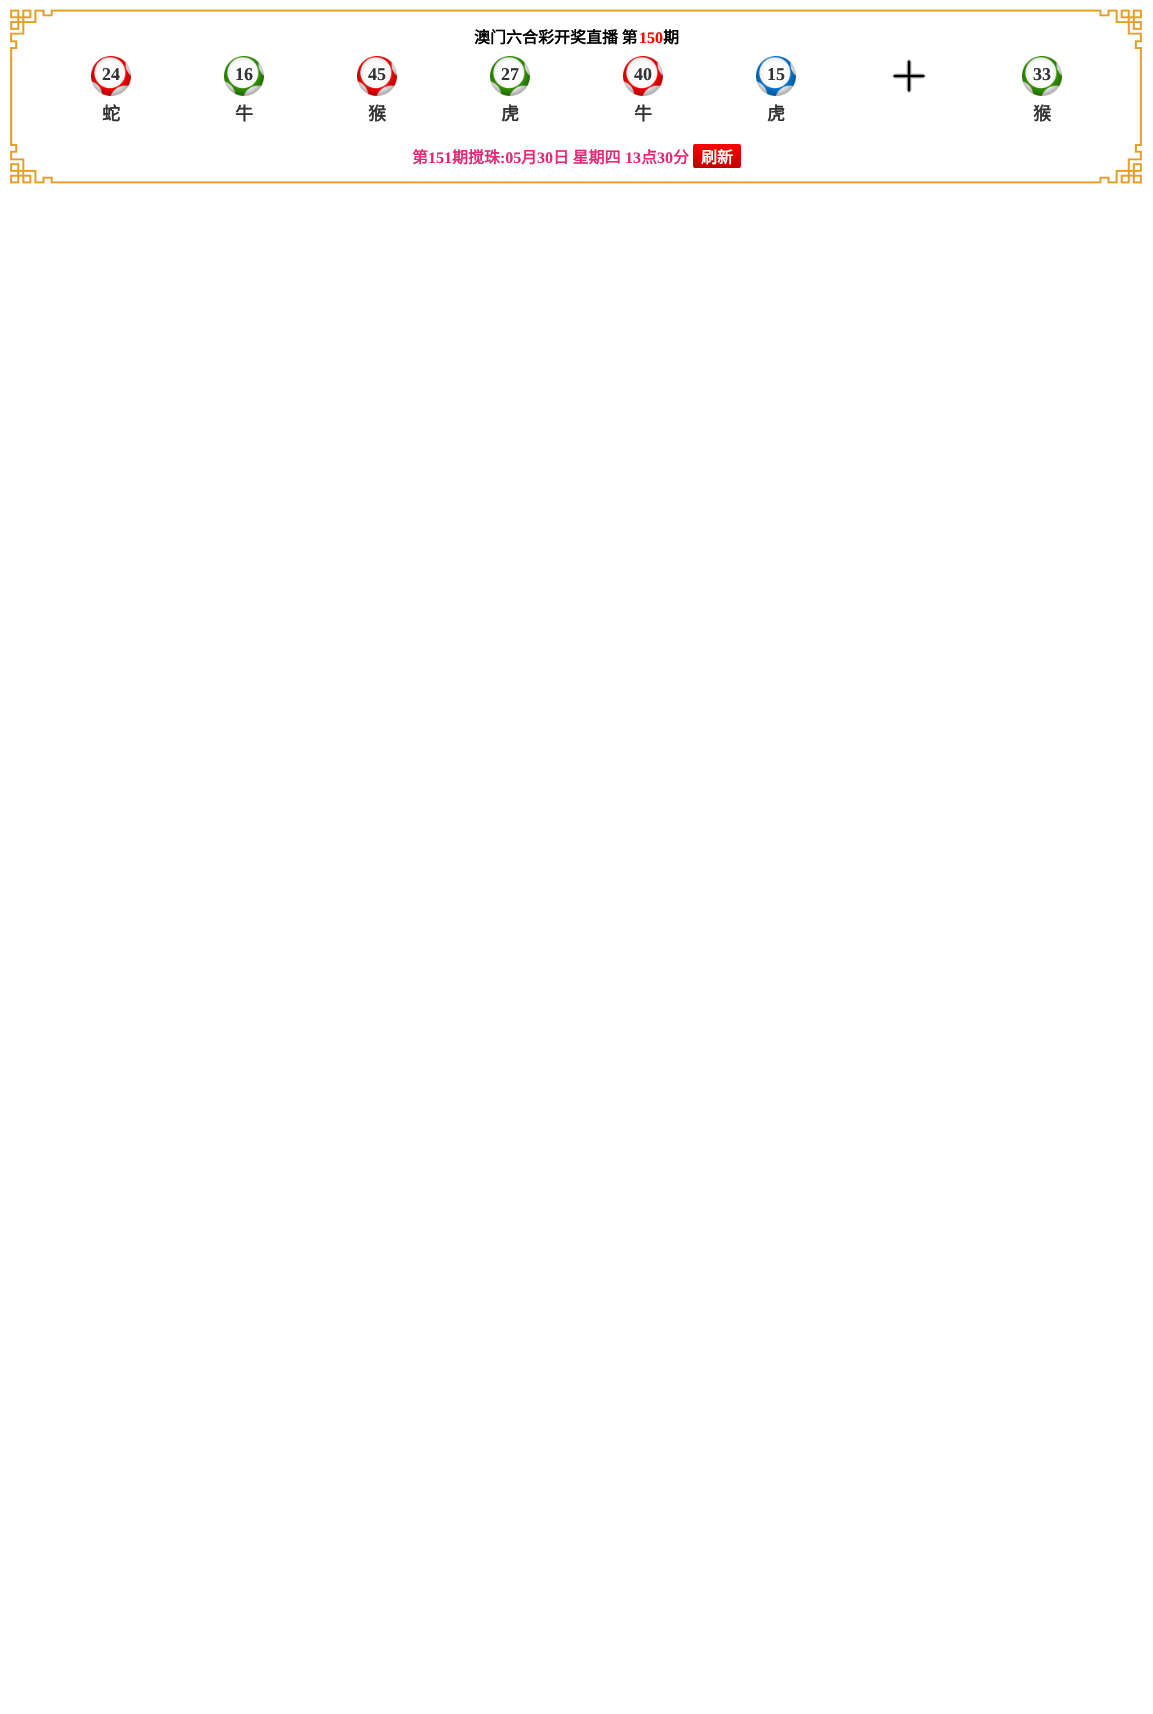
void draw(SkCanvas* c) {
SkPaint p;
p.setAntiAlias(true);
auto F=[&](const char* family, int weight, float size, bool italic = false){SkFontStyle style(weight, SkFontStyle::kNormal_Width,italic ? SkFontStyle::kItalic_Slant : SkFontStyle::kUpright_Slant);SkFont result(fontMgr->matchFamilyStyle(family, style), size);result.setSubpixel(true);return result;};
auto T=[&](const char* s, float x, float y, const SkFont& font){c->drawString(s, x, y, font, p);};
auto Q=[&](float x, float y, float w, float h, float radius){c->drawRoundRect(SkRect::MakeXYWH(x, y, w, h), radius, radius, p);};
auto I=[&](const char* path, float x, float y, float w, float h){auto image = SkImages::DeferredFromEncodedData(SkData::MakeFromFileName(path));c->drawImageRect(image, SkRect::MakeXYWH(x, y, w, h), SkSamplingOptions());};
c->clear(0xffffffff);
I("1.png",10,9,1132,175);
auto f1 = F("Noto Sans CJK SC",700,16);
p.setColor(0xff000000);
T("澳门六合彩开奖直播 第",474,43,f1);
auto f2 = F("Liberation Serif",700,16);
p.setColor(0xffff0000);
T("150",639,43,f2);
p.setColor(0xff000000);
T("期",663,43,f1);
I("2.png",91,56,40,40);
auto f3 = F("Liberation Serif",700,18);
p.setColor(0xff333333);
T("24",102,80,f3);
I("3.png",224,56,40,40);
T("16",235,80,f3);
I("2.png",357,56,40,40);
T("45",368,80,f3);
I("3.png",490,56,40,40);
T("27",501,80,f3);
I("2.png",623,56,40,40);
T("40",634,80,f3);
I("4.png",756,56,40,40);
T("15",767,80,f3);
I("5.png",892,59,34,34);
I("3.png",1022,56,40,40);
T("33",1033,80,f3);
auto f4 = F("Noto Sans CJK SC",700,18);
T("蛇",102,120,f4);
T("牛",235,120,f4);
T("猴",368,120,f4);
T("虎",501,120,f4);
T("牛",634,120,f4);
T("虎",767,120,f4);
T("猴",1033,120,f4);
p.setColor(0xffe72676);
T("第",412,163,f1);
T("151",428,163,f2);
T("期搅珠",452,163,f1);
T(":05",500,163,f2);
T("月",521,163,f1);
T("30",537,163,f2);
T("日 星期四",553,163,f1);
T("13",625,163,f2);
T("点",641,163,f1);
T("30",657,163,f2);
T("分",673,163,f1);
{
const SkColor colors[] = {0xffc10000,0xffff0000};
const float stops[] = {0,1};
const SkPoint ends[] = {{717,168}, {717,144}};
p.setShader(SkGradientShader::MakeLinear(ends, colors, stops, 2, SkTileMode::kClamp));
p.setAlpha(255);
}
Q(693,144,48,24,2);
p.setShader(nullptr);
p.setColor(0xffffffff);
T("刷新",701,163,f1);
}
